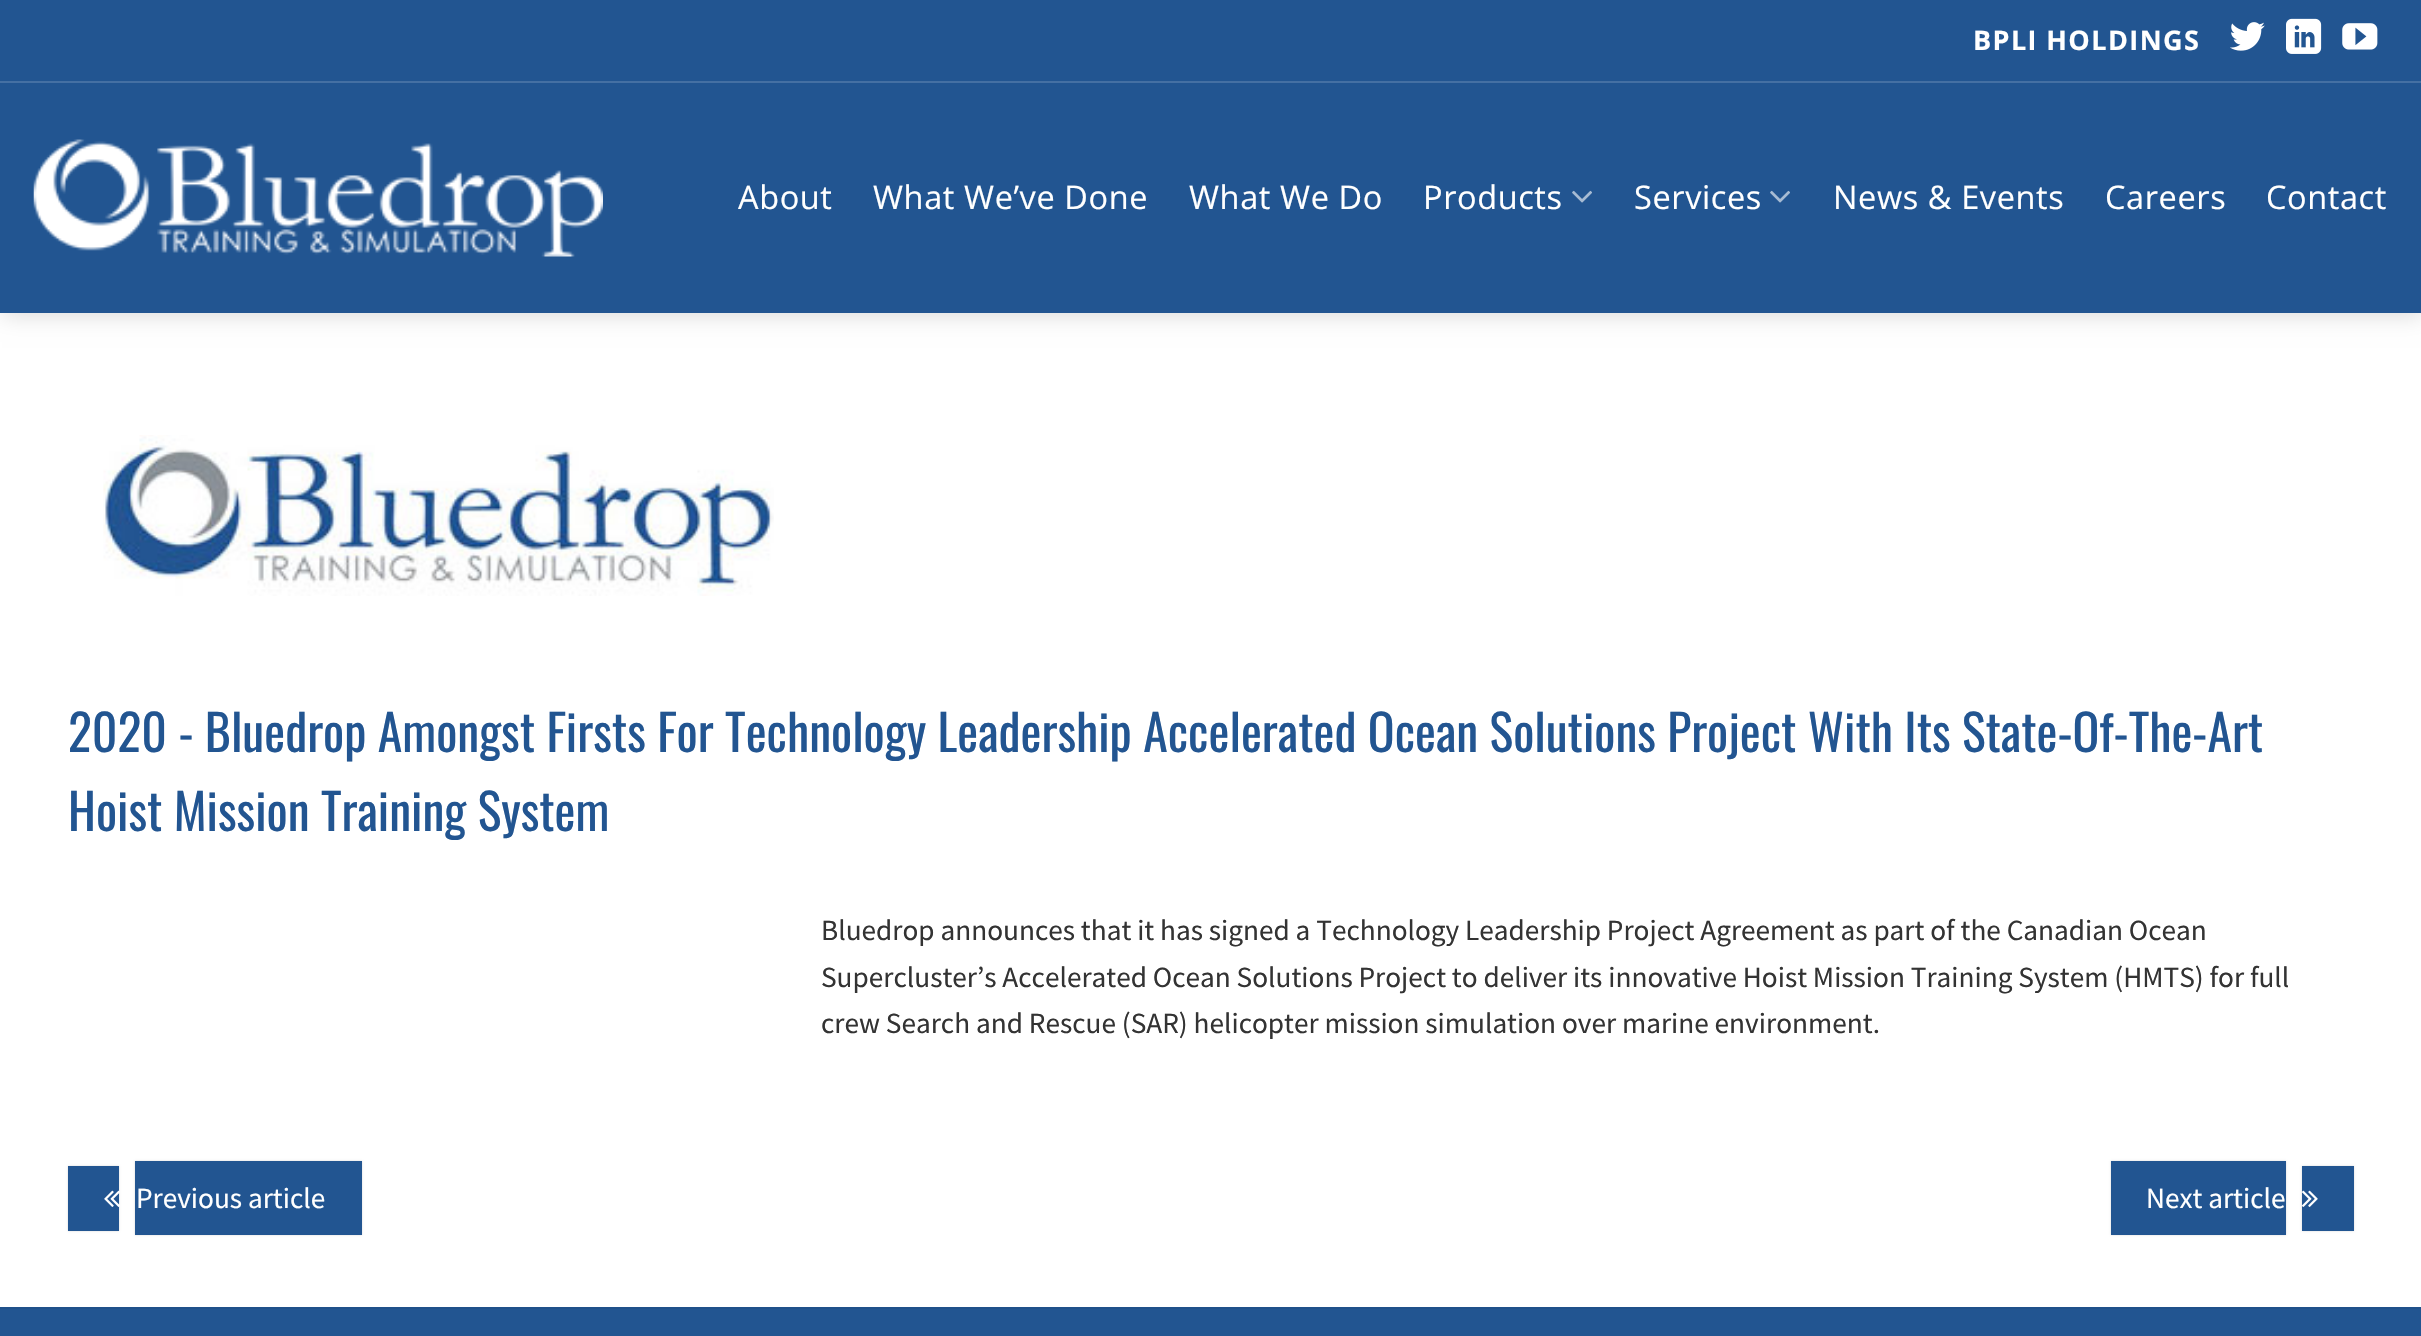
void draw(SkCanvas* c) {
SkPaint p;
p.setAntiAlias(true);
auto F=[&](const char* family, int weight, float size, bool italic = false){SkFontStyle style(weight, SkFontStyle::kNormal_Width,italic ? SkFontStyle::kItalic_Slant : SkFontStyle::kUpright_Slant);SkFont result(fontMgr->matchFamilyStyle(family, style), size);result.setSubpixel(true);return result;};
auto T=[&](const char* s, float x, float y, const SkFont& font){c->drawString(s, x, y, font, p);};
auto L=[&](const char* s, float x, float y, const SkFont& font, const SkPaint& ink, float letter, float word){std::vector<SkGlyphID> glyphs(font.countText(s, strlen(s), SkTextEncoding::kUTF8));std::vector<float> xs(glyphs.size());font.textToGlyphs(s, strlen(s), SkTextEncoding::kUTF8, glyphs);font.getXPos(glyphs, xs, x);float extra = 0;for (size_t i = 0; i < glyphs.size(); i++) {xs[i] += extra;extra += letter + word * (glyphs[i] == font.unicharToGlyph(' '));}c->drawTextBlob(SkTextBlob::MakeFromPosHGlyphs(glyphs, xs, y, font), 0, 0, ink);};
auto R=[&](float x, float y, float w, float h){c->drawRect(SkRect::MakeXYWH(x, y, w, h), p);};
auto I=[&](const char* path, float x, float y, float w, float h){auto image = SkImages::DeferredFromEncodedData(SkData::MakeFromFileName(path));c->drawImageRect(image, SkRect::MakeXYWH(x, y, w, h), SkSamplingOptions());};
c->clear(0xffffffff);
p.setColor(0x26000000);
p.setMaskFilter(SkMaskFilter::MakeBlur(kNormal_SkBlurStyle, 11));
c->drawRect(SkRect::MakeXYWH(2,2,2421,313),p);
p.setMaskFilter(nullptr);
p.setColor(0xff225591);
R(0,0,2421,313);
p.setColor(0xff4570a3);
R(0,81,2421,2);
auto f1 = F("Open Sans",700,27);
p.setColor(0xffffffff);
L("BPLI HOLDINGS",1973,50,f1,p,1.4,0);
I("1.png",2230,22,35,29);
I("2.png",2286,18,36,36);
I("3.png",2342,23,36,27);
I("4.png",33,139,570,118);
auto f2 = F("Open Sans",400,32.5);
L("About",738,209,f2,p,.6,0);
L("What We’ve Done",873,209,f2,p,.6,0);
L("What We Do",1189,209,f2,p,.6,0);
L("Products",1423,209,f2,p,.6,0);
I("5.png",1572,190,20,13);
L("Services",1634,209,f2,p,.6,0);
I("5.png",1770,190,20,13);
L("News & Events",1833,209,f2,p,.6,0);
L("Careers",2105,209,f2,p,.6,0);
L("Contact",2266,209,f2,p,.6,0);
I("6.png",103,435,671,161);
auto f3 = F("Oswald",400,49.75);
p.setColor(0xff225591);
T("2020 - Bluedrop Amongst Firsts For Technology Leadership Accelerated Ocean Solutions Project With Its State-Of-The-Art",68,752,f3);
T("Hoist Mission Training System",68,831,f3);
auto f4 = F("Source Sans Pro",400,29.25);
p.setColor(0xff333333);
T("Bluedrop announces that it has signed a Technology Leadership Project Agreement as part of the Canadian Ocean",821,940,f4);
T("Supercluster’s Accelerated Ocean Solutions Project to deliver its innovative Hoist Mission Training System (HMTS) for full",821,987,f4);
T("crew Search and Rescue (SAR) helicopter mission simulation over marine environment.",821,1033,f4);
p.setColor(0x26000000);
p.setMaskFilter(SkMaskFilter::MakeBlur(kNormal_SkBlurStyle, 1));
c->drawRect(SkRect::MakeXYWH(68,1166,51,65),p);
p.setMaskFilter(nullptr);
p.setColor(0xff225591);
R(68,1166,51,65);
p.setColor(0x26000000);
p.setMaskFilter(SkMaskFilter::MakeBlur(kNormal_SkBlurStyle, 1));
c->drawRect(SkRect::MakeXYWH(135,1161,227,74),p);
p.setMaskFilter(nullptr);
p.setColor(0xff225591);
R(135,1161,227,74);
I("7.png",104,1190,16,17);
p.setColor(0xffffffff);
T("Previous article",136,1208,f4);
p.setColor(0x26000000);
p.setMaskFilter(SkMaskFilter::MakeBlur(kNormal_SkBlurStyle, 1));
c->drawRect(SkRect::MakeXYWH(2111,1161,175,74),p);
p.setMaskFilter(nullptr);
p.setColor(0xff225591);
R(2111,1161,175,74);
p.setColor(0x26000000);
p.setMaskFilter(SkMaskFilter::MakeBlur(kNormal_SkBlurStyle, 1));
c->drawRect(SkRect::MakeXYWH(2302,1166,52,65),p);
p.setMaskFilter(nullptr);
p.setColor(0xff225591);
R(2302,1166,52,65);
p.setColor(0xffffffff);
T("Next article",2146,1208,f4);
I("8.png",2302,1190,16,17);
p.setColor(0xff225591);
R(0,1309,2421,27);
p.setColor(0xff20518a);
R(0,1307,2421,2);
}
